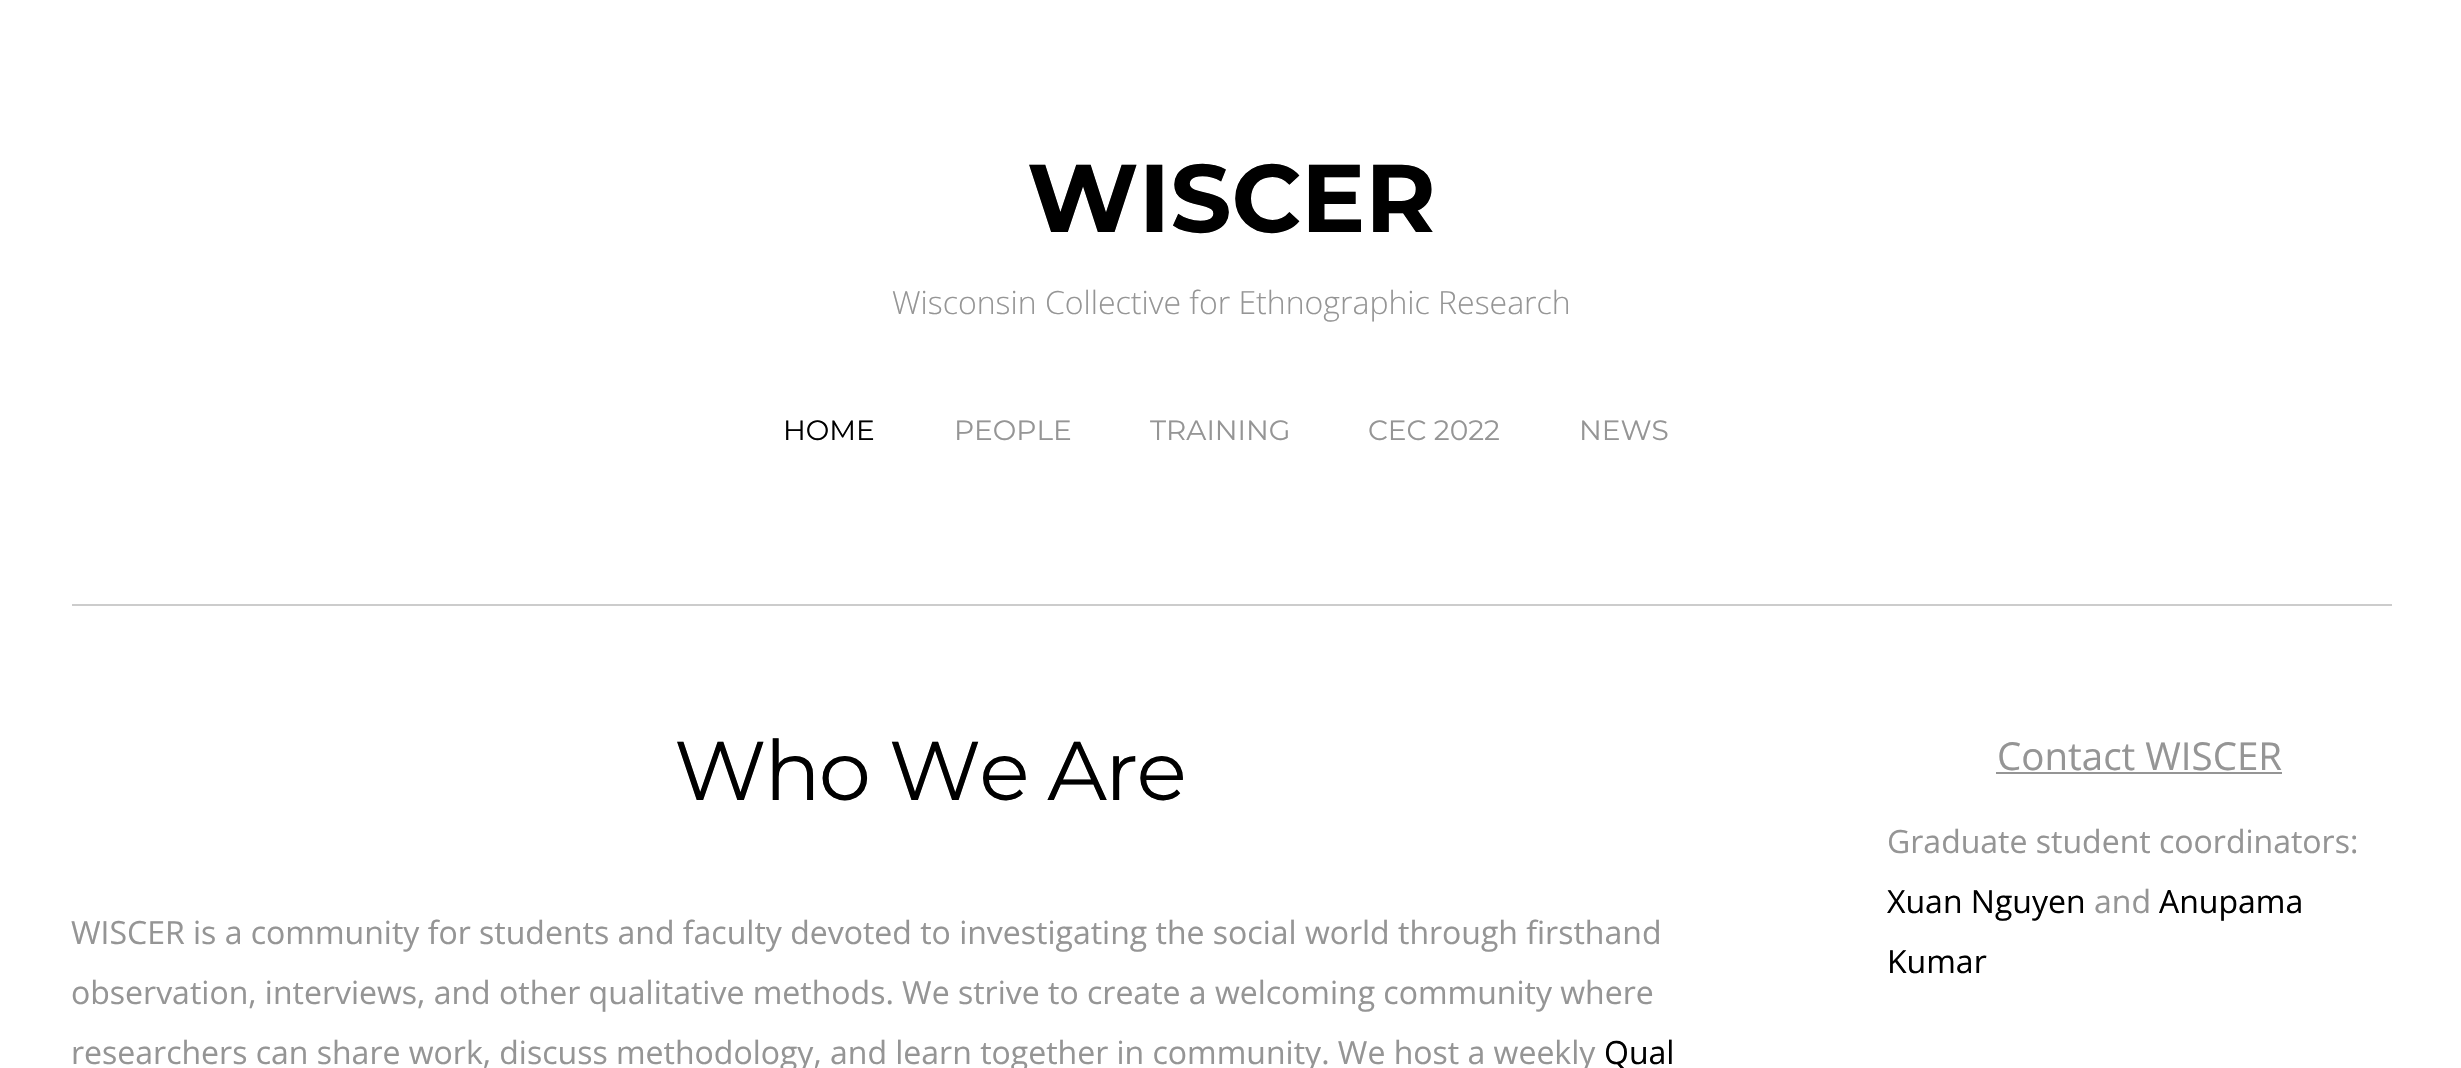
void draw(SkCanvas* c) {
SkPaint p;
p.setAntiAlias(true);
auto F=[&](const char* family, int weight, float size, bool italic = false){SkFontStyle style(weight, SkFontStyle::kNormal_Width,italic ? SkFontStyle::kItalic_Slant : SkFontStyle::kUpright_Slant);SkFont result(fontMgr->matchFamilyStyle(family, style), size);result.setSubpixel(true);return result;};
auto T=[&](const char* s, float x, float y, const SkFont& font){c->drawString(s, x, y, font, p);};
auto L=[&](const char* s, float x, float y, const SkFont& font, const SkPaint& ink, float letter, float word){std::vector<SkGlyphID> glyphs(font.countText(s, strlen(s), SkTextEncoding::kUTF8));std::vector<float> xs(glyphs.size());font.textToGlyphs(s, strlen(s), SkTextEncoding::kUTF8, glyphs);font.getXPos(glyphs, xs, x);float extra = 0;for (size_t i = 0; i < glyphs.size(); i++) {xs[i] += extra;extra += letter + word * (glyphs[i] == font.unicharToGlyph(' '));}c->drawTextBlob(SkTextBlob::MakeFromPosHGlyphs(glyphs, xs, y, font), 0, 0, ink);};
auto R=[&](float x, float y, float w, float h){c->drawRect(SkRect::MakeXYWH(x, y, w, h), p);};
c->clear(0xffffffff);
p.setColor(0xffcccccc);
R(72,604,2320,2);
auto f1 = F("Montserrat",700,96);
p.setColor(0xff000000);
T("WISCER",1027,232,f1);
auto f2 = F("Open Sans",300,32);
p.setColor(0xff959595);
T("Wisconsin Collective for Ethnographic Research",892,314,f2);
auto f3 = F("Montserrat",400,28);
p.setColor(0xff000000);
T("HOME",783,440,f3);
p.setColor(0xff959595);
T("PEOPLE",954,440,f3);
T("TRAINING",1150,440,f3);
T("CEC 2022",1368,440,f3);
T("NEWS",1579,440,f3);
auto f4 = F("Montserrat",400,83.25);
p.setColor(0xff000000);
L("Who We Are",674,800,f4,p,-2,0);
auto f5 = F("Open Sans",400,32);
p.setColor(0xff959595);
T("WISCER is a community for students and faculty devoted to investigating the social world through firsthand",71,944,f5);
T("observation, interviews, and other qualitative methods. We strive to create a welcoming community where",71,1004,f5);
T("researchers can share work, discuss methodology, and learn together in community. We host a weekly",71,1064,f5);
p.setColor(0xff000000);
T("Qual",1604,1064,f5);
auto f6 = F("Open Sans",400,38.5);
p.setColor(0xff959595);
T("Contact WISCER",1997,770,f6);
R(1996,772,286,2);
T("Graduate student coordinators:",1887,853,f5);
p.setColor(0xff000000);
T("Xuan Nguyen",1887,913,f5);
p.setColor(0xff959595);
T("and",2094,913,f5);
p.setColor(0xff000000);
T("Anupama",2159,913,f5);
T("Kumar",1887,973,f5);
}
